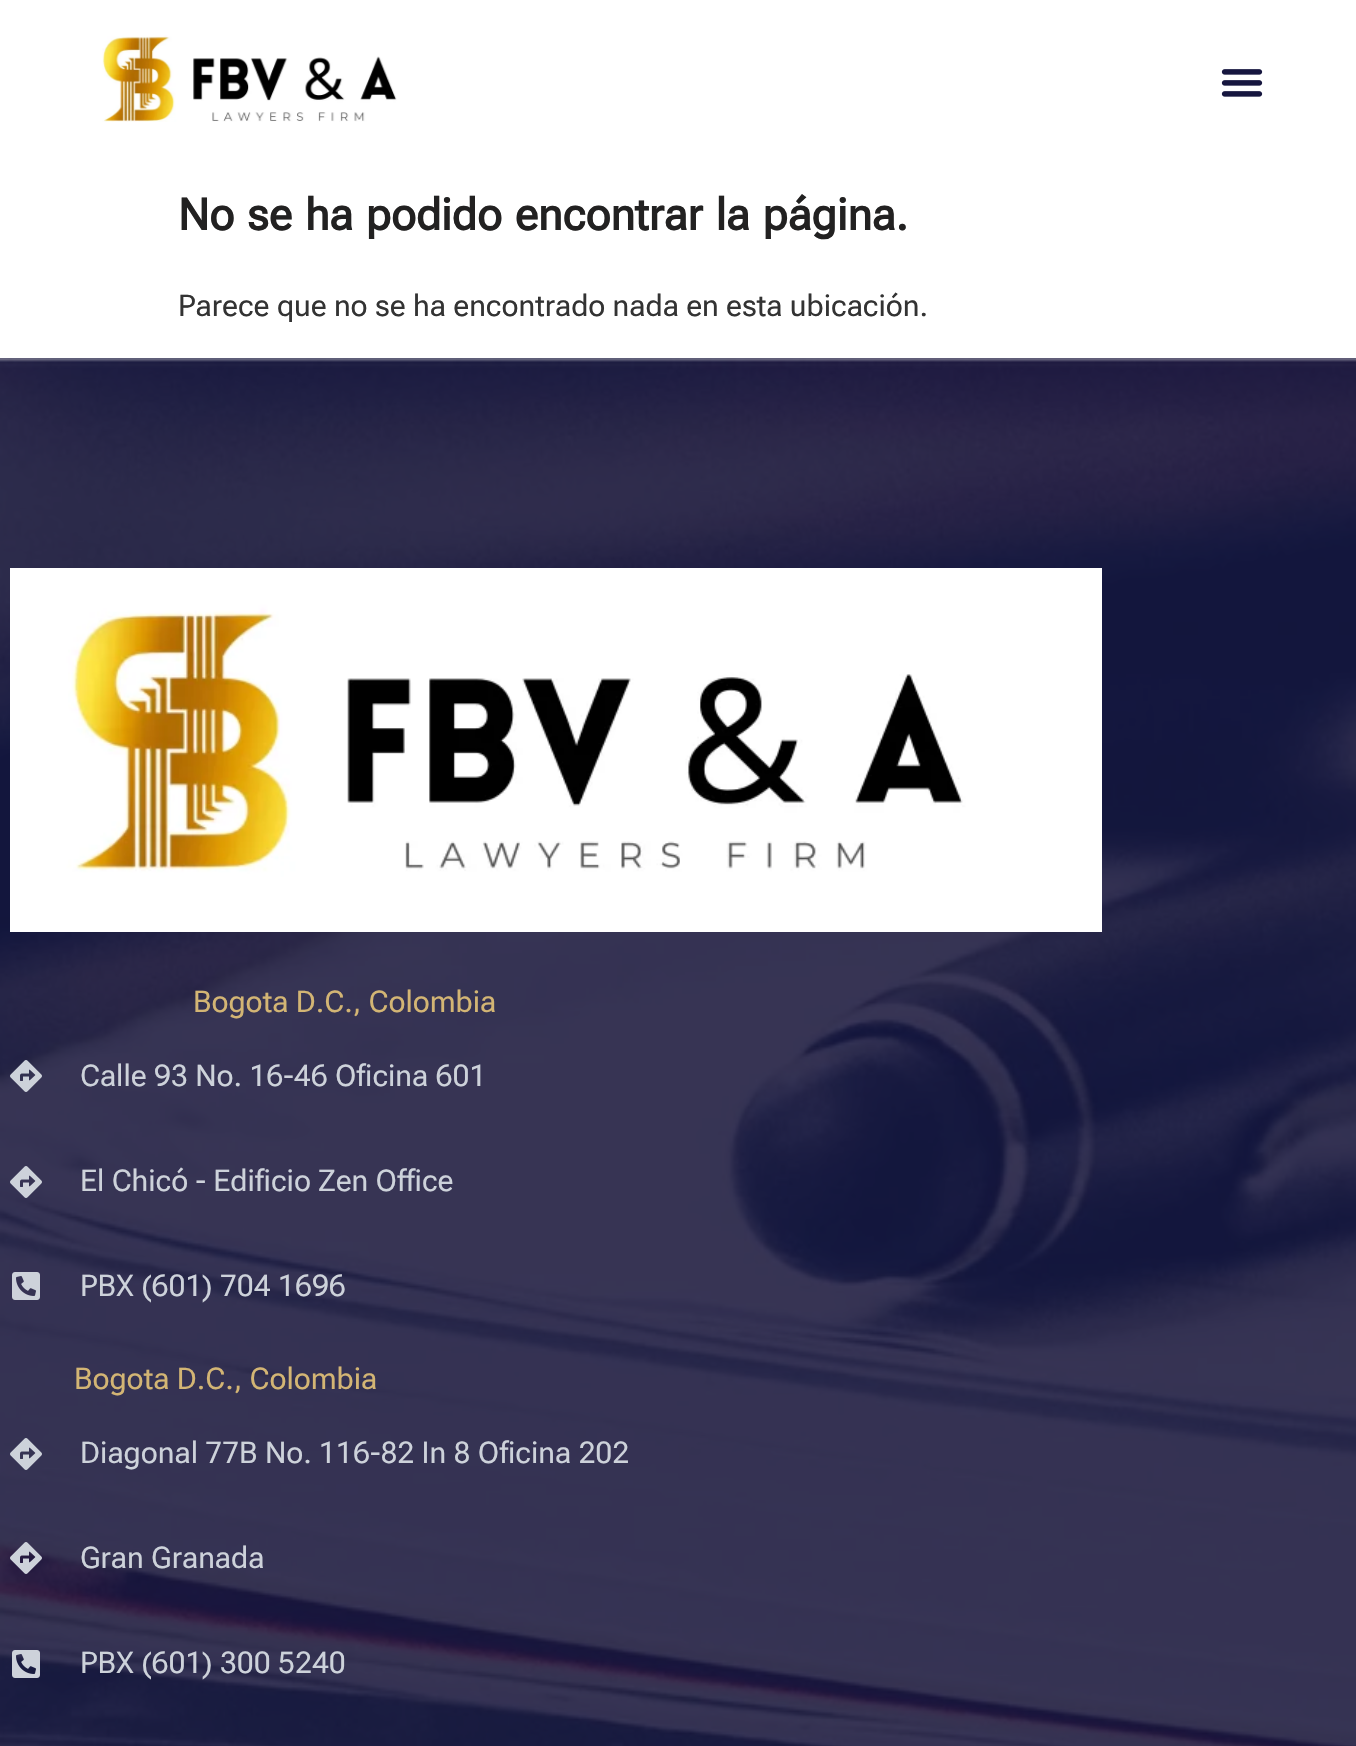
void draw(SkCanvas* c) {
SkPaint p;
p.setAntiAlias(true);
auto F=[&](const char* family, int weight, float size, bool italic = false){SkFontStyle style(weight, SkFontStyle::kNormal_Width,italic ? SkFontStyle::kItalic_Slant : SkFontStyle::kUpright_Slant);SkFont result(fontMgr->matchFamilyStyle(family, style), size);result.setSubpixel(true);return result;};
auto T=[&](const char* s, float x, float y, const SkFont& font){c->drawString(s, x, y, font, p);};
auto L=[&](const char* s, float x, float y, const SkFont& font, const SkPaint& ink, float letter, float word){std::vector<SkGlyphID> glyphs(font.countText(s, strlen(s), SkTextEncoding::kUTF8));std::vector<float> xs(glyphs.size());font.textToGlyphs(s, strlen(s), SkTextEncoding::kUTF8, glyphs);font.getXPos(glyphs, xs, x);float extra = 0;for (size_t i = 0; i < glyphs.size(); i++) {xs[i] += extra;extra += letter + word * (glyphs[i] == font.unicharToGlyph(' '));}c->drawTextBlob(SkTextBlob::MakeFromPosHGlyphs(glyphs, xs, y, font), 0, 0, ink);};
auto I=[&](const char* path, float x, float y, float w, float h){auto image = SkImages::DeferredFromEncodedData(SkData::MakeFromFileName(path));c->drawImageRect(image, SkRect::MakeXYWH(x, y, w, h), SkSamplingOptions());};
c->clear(0xffffffff);
I("1.png",102,35,295,87);
I("2.png",1221,69,42,28);
auto f1 = F("Roboto Flex",700,44);
p.setColor(0xff222121);
L("No se ha podido encontrar la página.",178,230,f1,p,0,2);
auto f2 = F("Roboto Flex",400,30);
p.setColor(0xff333333);
T("Parece que no se ha encontrado nada en esta ubicación.",178,316,f2);
I("3.png",0,358,1356,1388);
I("4.png",10,568,1092,364);
p.setColor(0xffd3b574);
T("Bogota D.C., Colombia",193,1012,f2);
I("5.png",10,1060,32,32);
p.setColor(0xffcdd2da);
T("Calle 93 No. 16-46 Oficina 601",80,1086,f2);
I("6.png",10,1166,32,32);
T("El Chicó - Edificio Zen Office",80,1191,f2);
I("7.png",12,1272,28,28);
T("PBX (601) 704 1696",80,1296,f2);
p.setColor(0xffd3b574);
T("Bogota D.C., Colombia",74,1389,f2);
I("8.png",10,1438,32,32);
p.setColor(0xffcdd2da);
T("Diagonal 77B No. 116-82 In 8 Oficina 202",80,1463,f2);
I("9.png",10,1542,32,32);
T("Gran Granada",80,1568,f2);
I("10.png",12,1650,28,28);
T("PBX (601) 300 5240",80,1673,f2);
}
